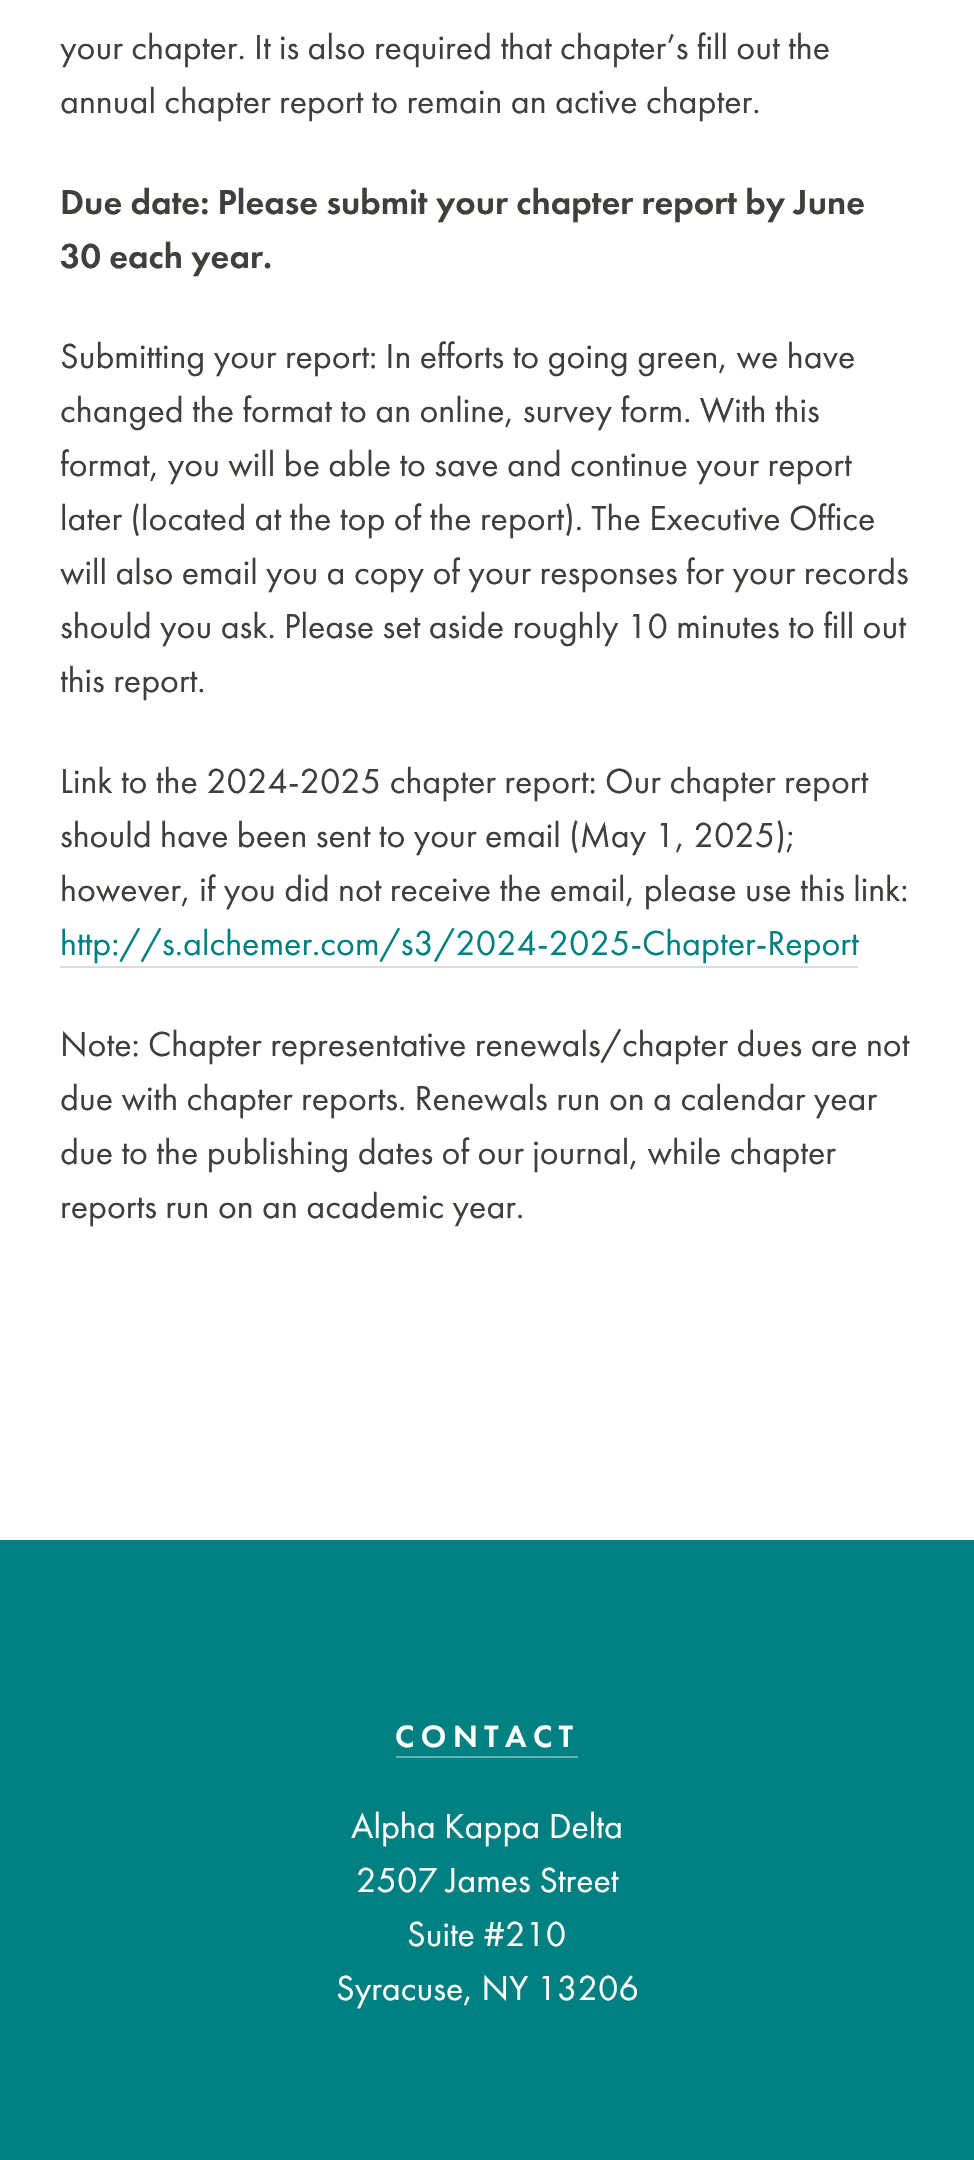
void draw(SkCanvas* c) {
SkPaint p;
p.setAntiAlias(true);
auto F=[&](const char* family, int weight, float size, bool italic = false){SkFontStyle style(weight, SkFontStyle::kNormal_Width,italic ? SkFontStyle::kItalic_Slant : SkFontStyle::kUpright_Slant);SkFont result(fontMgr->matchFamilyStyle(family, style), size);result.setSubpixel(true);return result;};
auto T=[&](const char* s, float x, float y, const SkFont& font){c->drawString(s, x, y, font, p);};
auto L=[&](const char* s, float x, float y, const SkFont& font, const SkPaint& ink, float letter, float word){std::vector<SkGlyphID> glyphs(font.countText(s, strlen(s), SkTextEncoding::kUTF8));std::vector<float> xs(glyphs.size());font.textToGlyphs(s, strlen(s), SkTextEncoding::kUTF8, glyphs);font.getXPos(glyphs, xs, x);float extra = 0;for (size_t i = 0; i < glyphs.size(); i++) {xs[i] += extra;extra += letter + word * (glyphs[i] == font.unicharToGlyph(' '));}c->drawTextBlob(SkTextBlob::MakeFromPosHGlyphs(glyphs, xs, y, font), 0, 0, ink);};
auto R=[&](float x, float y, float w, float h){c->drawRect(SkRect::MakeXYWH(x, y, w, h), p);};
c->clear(0xffffffff);
auto f1 = F("Futura PT",400,36);
p.setColor(0xff403f3c);
T("your chapter. It is also required that chapter’s fill out the",60,59,f1);
T("annual chapter report to remain an active chapter.",60,113,f1);
auto f2 = F("Futura PT",500,36);
T("Due date: Please submit your chapter report by June",60,214,f2);
T("30 each year.",60,268,f2);
T("Submitting your report: In efforts to going green, we have",60,368,f1);
T("changed the format to an online, survey form. With this",60,422,f1);
T("format, you will be able to save and continue your report",60,476,f1);
T("later (located at the top of the report). The Executive Office",60,530,f1);
T("will also email you a copy of your responses for your records",60,584,f1);
T("should you ask. Please set aside roughly 10 minutes to fill out",60,638,f1);
T("this report.",60,692,f1);
T("Link to the 2024-2025 chapter report: Our chapter report",60,793,f1);
T("should have been sent to your email (May 1, 2025);",60,847,f1);
T("however, if you did not receive the email, please use this link:",60,901,f1);
p.setColor(0xff008080);
T("http://s.alchemer.com/s3/2024-2025-Chapter-Report",60,955,f1);
p.setColor(0xffd8ddd9);
R(60,966,798,2);
p.setColor(0xff403f3c);
T("Note: Chapter representative renewals/chapter dues are not",60,1056,f1);
T("due with chapter reports. Renewals run on a calendar year",60,1110,f1);
T("due to the publishing dates of our journal, while chapter",60,1164,f1);
T("reports run on an academic year.",60,1218,f1);
p.setColor(0xff008080);
R(0,1540,974,620);
auto f3 = F("Futura PT",500,32);
p.setColor(0xffffffff);
L("CONTACT",395,1747,f3,p,6.5,0);
p.setColor(0xff66b3b3);
R(396,1756,182,2);
p.setColor(0xffffffff);
T("Alpha Kappa Delta",351,1838,f1);
T("2507 James Street",356,1892,f1);
T("Suite #210",407,1946,f1);
T("Syracuse, NY 13206",336,2000,f1);
}
